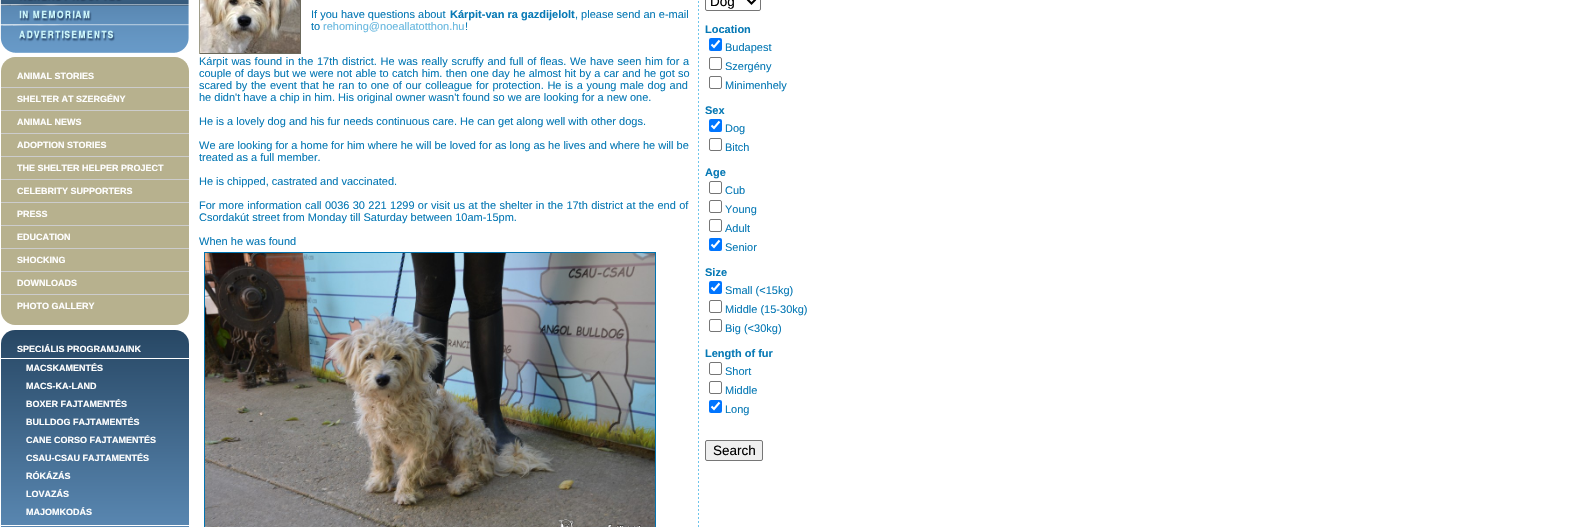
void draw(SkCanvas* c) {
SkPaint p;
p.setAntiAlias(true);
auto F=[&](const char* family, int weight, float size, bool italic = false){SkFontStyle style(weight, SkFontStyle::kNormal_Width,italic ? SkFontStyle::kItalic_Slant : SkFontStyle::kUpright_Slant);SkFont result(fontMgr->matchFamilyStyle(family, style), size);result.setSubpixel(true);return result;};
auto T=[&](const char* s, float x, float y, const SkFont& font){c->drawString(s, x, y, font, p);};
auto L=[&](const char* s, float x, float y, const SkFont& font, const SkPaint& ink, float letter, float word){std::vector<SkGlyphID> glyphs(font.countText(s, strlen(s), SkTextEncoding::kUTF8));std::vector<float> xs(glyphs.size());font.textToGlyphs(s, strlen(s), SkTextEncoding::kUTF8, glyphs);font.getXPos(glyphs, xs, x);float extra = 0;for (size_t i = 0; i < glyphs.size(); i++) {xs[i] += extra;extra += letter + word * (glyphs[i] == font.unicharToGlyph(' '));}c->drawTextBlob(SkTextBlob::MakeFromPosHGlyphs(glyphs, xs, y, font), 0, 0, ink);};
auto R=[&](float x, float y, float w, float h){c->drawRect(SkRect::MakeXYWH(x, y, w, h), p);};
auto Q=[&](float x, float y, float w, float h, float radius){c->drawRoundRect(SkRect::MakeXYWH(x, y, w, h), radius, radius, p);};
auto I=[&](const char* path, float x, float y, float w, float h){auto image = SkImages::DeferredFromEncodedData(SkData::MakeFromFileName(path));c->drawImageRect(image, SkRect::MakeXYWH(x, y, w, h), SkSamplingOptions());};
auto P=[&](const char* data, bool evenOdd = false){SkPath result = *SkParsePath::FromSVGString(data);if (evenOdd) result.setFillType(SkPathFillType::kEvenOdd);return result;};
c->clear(0xffffffff);
I("1.png",0,0,189,6);
I("2.png",0,6,189,20);
I("3.png",0,26,189,27);
p.setColor(0xffb7b18e);
c->drawPath(P("M15 57h160c7.5 0 14 6.5 14 14v16h-188v-16c0-7.5 6.5-14 14-14z"),p);
auto f1 = F("Liberation Sans",700,9);
p.setColor(0xffffffff);
T("ANIMAL STORIES",17,79,f1);
p.setColor(0xffcccccc);
R(1,87,188,1);
p.setColor(0xffb7b18e);
R(1,88,188,22);
p.setColor(0xffffffff);
T("SHELTER AT SZERGÉNY",17,102,f1);
p.setColor(0xffcccccc);
R(1,110,188,1);
p.setColor(0xffb7b18e);
R(1,111,188,22);
p.setColor(0xffffffff);
T("ANIMAL NEWS",17,125,f1);
p.setColor(0xffcccccc);
R(1,133,188,1);
p.setColor(0xffb7b18e);
R(1,134,188,22);
p.setColor(0xffffffff);
T("ADOPTION STORIES",17,148,f1);
p.setColor(0xffcccccc);
R(1,156,188,1);
p.setColor(0xffb7b18e);
R(1,157,188,22);
p.setColor(0xffffffff);
T("THE SHELTER HELPER PROJECT",17,171,f1);
p.setColor(0xffcccccc);
R(1,179,188,1);
p.setColor(0xffb7b18e);
R(1,180,188,22);
p.setColor(0xffffffff);
T("CELEBRITY SUPPORTERS",17,194,f1);
p.setColor(0xffcccccc);
R(1,202,188,1);
p.setColor(0xffb7b18e);
R(1,203,188,22);
p.setColor(0xffffffff);
T("PRESS",17,217,f1);
p.setColor(0xffcccccc);
R(1,225,188,1);
p.setColor(0xffb7b18e);
R(1,226,188,22);
p.setColor(0xffffffff);
T("EDUCATION",17,240,f1);
p.setColor(0xffcccccc);
R(1,248,188,1);
p.setColor(0xffb7b18e);
R(1,249,188,22);
p.setColor(0xffffffff);
T("SHOCKING",17,263,f1);
p.setColor(0xffcccccc);
R(1,271,188,1);
p.setColor(0xffb7b18e);
R(1,272,188,22);
p.setColor(0xffffffff);
T("DOWNLOADS",17,286,f1);
p.setColor(0xffcccccc);
R(1,294,188,1);
p.setColor(0xffb7b18e);
c->drawPath(P("M1 295h188v16c0 7.5-6.5 14-14 14h-160c-7.5 0-14-6.5-14-14z"),p);
p.setColor(0xffffffff);
T("PHOTO GALLERY",17,309,f1);
{
const SkColor colors[] = {0xff274764,0xff689ac8};
const float stops[] = {0,1};
const SkPoint ends[] = {{95,330}, {95,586}};
p.setShader(SkGradientShader::MakeLinear(ends, colors, stops, 2, SkTileMode::kClamp));
p.setAlpha(255);
}
Q(1,330,188,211,14);
p.setShader(nullptr);
p.setColor(0xffffffff);
R(1,358,188,1);
T("SPECIÁLIS PROGRAMJAINK",17,352,f1);
T("MACSKAMENTÉS",26,371,f1);
T("MACS-KA-LAND",26,389,f1);
T("BOXER FAJTAMENTÉS",26,407,f1);
T("BULLDOG FAJTAMENTÉS",26,425,f1);
T("CANE CORSO FAJTAMENTÉS",26,443,f1);
T("CSAU-CSAU FAJTAMENTÉS",26,461,f1);
T("RÓKÁZÁS",26,479,f1);
T("LOVAZÁS",26,497,f1);
R(1,525,188,1);
T("MAJOMKODÁS",26,515,f1);
p.setColor(0xff6b695c);
R(300,0,1,54);
R(199,53,102,1);
p.setColor(0xffa09d8a);
R(199,0,1,54);
I("4.png",200,0,100,53);
auto f2 = F("Liberation Sans",400,11);
p.setColor(0xff0779b5);
T("If you have questions about",311,18,f2);
auto f3 = F("Liberation Sans",700,11);
T("Kárpit-van ra gazdijelolt",450,18,f3);
T(", please send an e-mail",575,18,f2);
T("to",311,30,f2);
p.setColor(0xff68b8df);
T("rehoming@noeallatotthon.hu",323,30,f2);
p.setColor(0xff0779b5);
T("!",465,30,f2);
L("Kárpit was found in the 17th district. He was really scruffy and full of fleas. We have seen him for a",199,65,f2,p,0,.6);
L("couple of days but we were not able to catch him. then one day he almost hit by a car and he got so",199,77,f2,p,0,.25);
L("scared by the event that he ran to one of our colleague for protection. He is a young male dog and",199,89,f2,p,0,.6);
T("he didn't have a chip in him. His original owner wasn't found so we are looking for a new one.",199,101,f2);
T("He is a lovely dog and his fur needs continuous care. He can get along well with other dogs.",199,125,f2);
T("We are looking for a home for him where he will be loved for as long as he lives and where he will be",199,149,f2);
T("treated as a full member.",199,161,f2);
T("He is chipped, castrated and vaccinated.",199,185,f2);
L("For more information call 0036 30 221 1299 or visit us at the shelter in the 17th district at the end of",199,209,f2,p,0,.3);
T("Csordakút street from Monday till Saturday between 10am-15pm.",199,221,f2);
T("When he was found",199,245,f2);
p.setStroke(true);
p.setStrokeWidth(1);
p.setColor(0xff0074b1);
c->drawRect(SkRect::MakeXYWH(204.5,252.5,451,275),p);
I("5.png",205,253,450,274);
I("6.png",698,1,1,526);
p.setColor(0xff767676);
c->drawRoundRect(SkRect::MakeXYWH(705.5,-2.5,55,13),1.5,1.5,p);
p.setStrokeWidth(2);
p.setColor(0xff000000);
c->drawPath(P("M747.5-.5l4 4l4-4"),p);
auto f4 = F("Liberation Sans",400,13.5);
p.setStroke(false);
T("Dog",710,6,f4);
p.setColor(0xff0779b5);
T("Location",705,33,f3);
p.setColor(0xff0075ff);
Q(709,38,13,13,2);
p.setStroke(true);
p.setStrokeWidth(2.1);
p.setColor(0xffffffff);
c->drawPath(P("M711.5 44.5l2.5 2.5l5.5-6.5"),p);
p.setStroke(false);
p.setColor(0xff0779b5);
T("Budapest",725,51,f2);
p.setStroke(true);
p.setStrokeWidth(1);
p.setColor(0xff767676);
c->drawRoundRect(SkRect::MakeXYWH(709.5,57.5,12,12),1.5,1.5,p);
p.setStroke(false);
p.setColor(0xff0779b5);
T("Szergény",725,70,f2);
p.setStroke(true);
p.setColor(0xff767676);
c->drawRoundRect(SkRect::MakeXYWH(709.5,76.5,12,12),1.5,1.5,p);
p.setStroke(false);
p.setColor(0xff0779b5);
T("Minimenhely",725,89,f2);
T("Sex",705,114,f3);
p.setColor(0xff0075ff);
Q(709,119,13,13,2);
p.setStroke(true);
p.setStrokeWidth(2.1);
p.setColor(0xffffffff);
c->drawPath(P("M711.5 125.5l2.5 2.5l5.5-6.5"),p);
p.setStroke(false);
p.setColor(0xff0779b5);
T("Dog",725,132,f2);
p.setStroke(true);
p.setStrokeWidth(1);
p.setColor(0xff767676);
c->drawRoundRect(SkRect::MakeXYWH(709.5,138.5,12,12),1.5,1.5,p);
p.setStroke(false);
p.setColor(0xff0779b5);
T("Bitch",725,151,f2);
T("Age",705,176,f3);
p.setStroke(true);
p.setColor(0xff767676);
c->drawRoundRect(SkRect::MakeXYWH(709.5,181.5,12,12),1.5,1.5,p);
p.setStroke(false);
p.setColor(0xff0779b5);
T("Cub",725,194,f2);
p.setStroke(true);
p.setColor(0xff767676);
c->drawRoundRect(SkRect::MakeXYWH(709.5,200.5,12,12),1.5,1.5,p);
p.setStroke(false);
p.setColor(0xff0779b5);
T("Young",725,213,f2);
p.setStroke(true);
p.setColor(0xff767676);
c->drawRoundRect(SkRect::MakeXYWH(709.5,219.5,12,12),1.5,1.5,p);
p.setStroke(false);
p.setColor(0xff0779b5);
T("Adult",725,232,f2);
p.setColor(0xff0075ff);
Q(709,238,13,13,2);
p.setStroke(true);
p.setStrokeWidth(2.1);
p.setColor(0xffffffff);
c->drawPath(P("M711.5 244.5l2.5 2.5l5.5-6.5"),p);
p.setStroke(false);
p.setColor(0xff0779b5);
T("Senior",725,251,f2);
T("Size",705,276,f3);
p.setColor(0xff0075ff);
Q(709,281,13,13,2);
p.setStroke(true);
p.setColor(0xffffffff);
c->drawPath(P("M711.5 287.5l2.5 2.5l5.5-6.5"),p);
p.setStroke(false);
p.setColor(0xff0779b5);
T("Small (<15kg)",725,294,f2);
p.setStroke(true);
p.setStrokeWidth(1);
p.setColor(0xff767676);
c->drawRoundRect(SkRect::MakeXYWH(709.5,300.5,12,12),1.5,1.5,p);
p.setStroke(false);
p.setColor(0xff0779b5);
T("Middle (15-30kg)",725,313,f2);
p.setStroke(true);
p.setColor(0xff767676);
c->drawRoundRect(SkRect::MakeXYWH(709.5,319.5,12,12),1.5,1.5,p);
p.setStroke(false);
p.setColor(0xff0779b5);
T("Big (<30kg)",725,332,f2);
T("Length of fur",705,357,f3);
p.setStroke(true);
p.setColor(0xff767676);
c->drawRoundRect(SkRect::MakeXYWH(709.5,362.5,12,12),1.5,1.5,p);
p.setStroke(false);
p.setColor(0xff0779b5);
T("Short",725,375,f2);
p.setStroke(true);
p.setColor(0xff767676);
c->drawRoundRect(SkRect::MakeXYWH(709.5,381.5,12,12),1.5,1.5,p);
p.setStroke(false);
p.setColor(0xff0779b5);
T("Middle",725,394,f2);
p.setColor(0xff0075ff);
Q(709,400,13,13,2);
p.setStroke(true);
p.setStrokeWidth(2.1);
p.setColor(0xffffffff);
c->drawPath(P("M711.5 406.5l2.5 2.5l5.5-6.5"),p);
p.setStroke(false);
p.setColor(0xff0779b5);
T("Long",725,413,f2);
p.setColor(0xffefefef);
c->drawRoundRect(SkRect::MakeXYWH(705.5,440.5,57,20),1.5,1.5,p);
p.setStroke(true);
p.setStrokeWidth(1);
p.setColor(0xff767676);
c->drawRoundRect(SkRect::MakeXYWH(705.5,440.5,57,20),1.5,1.5,p);
p.setStroke(false);
p.setColor(0xff000000);
T("Search",713,455,f4);
}
